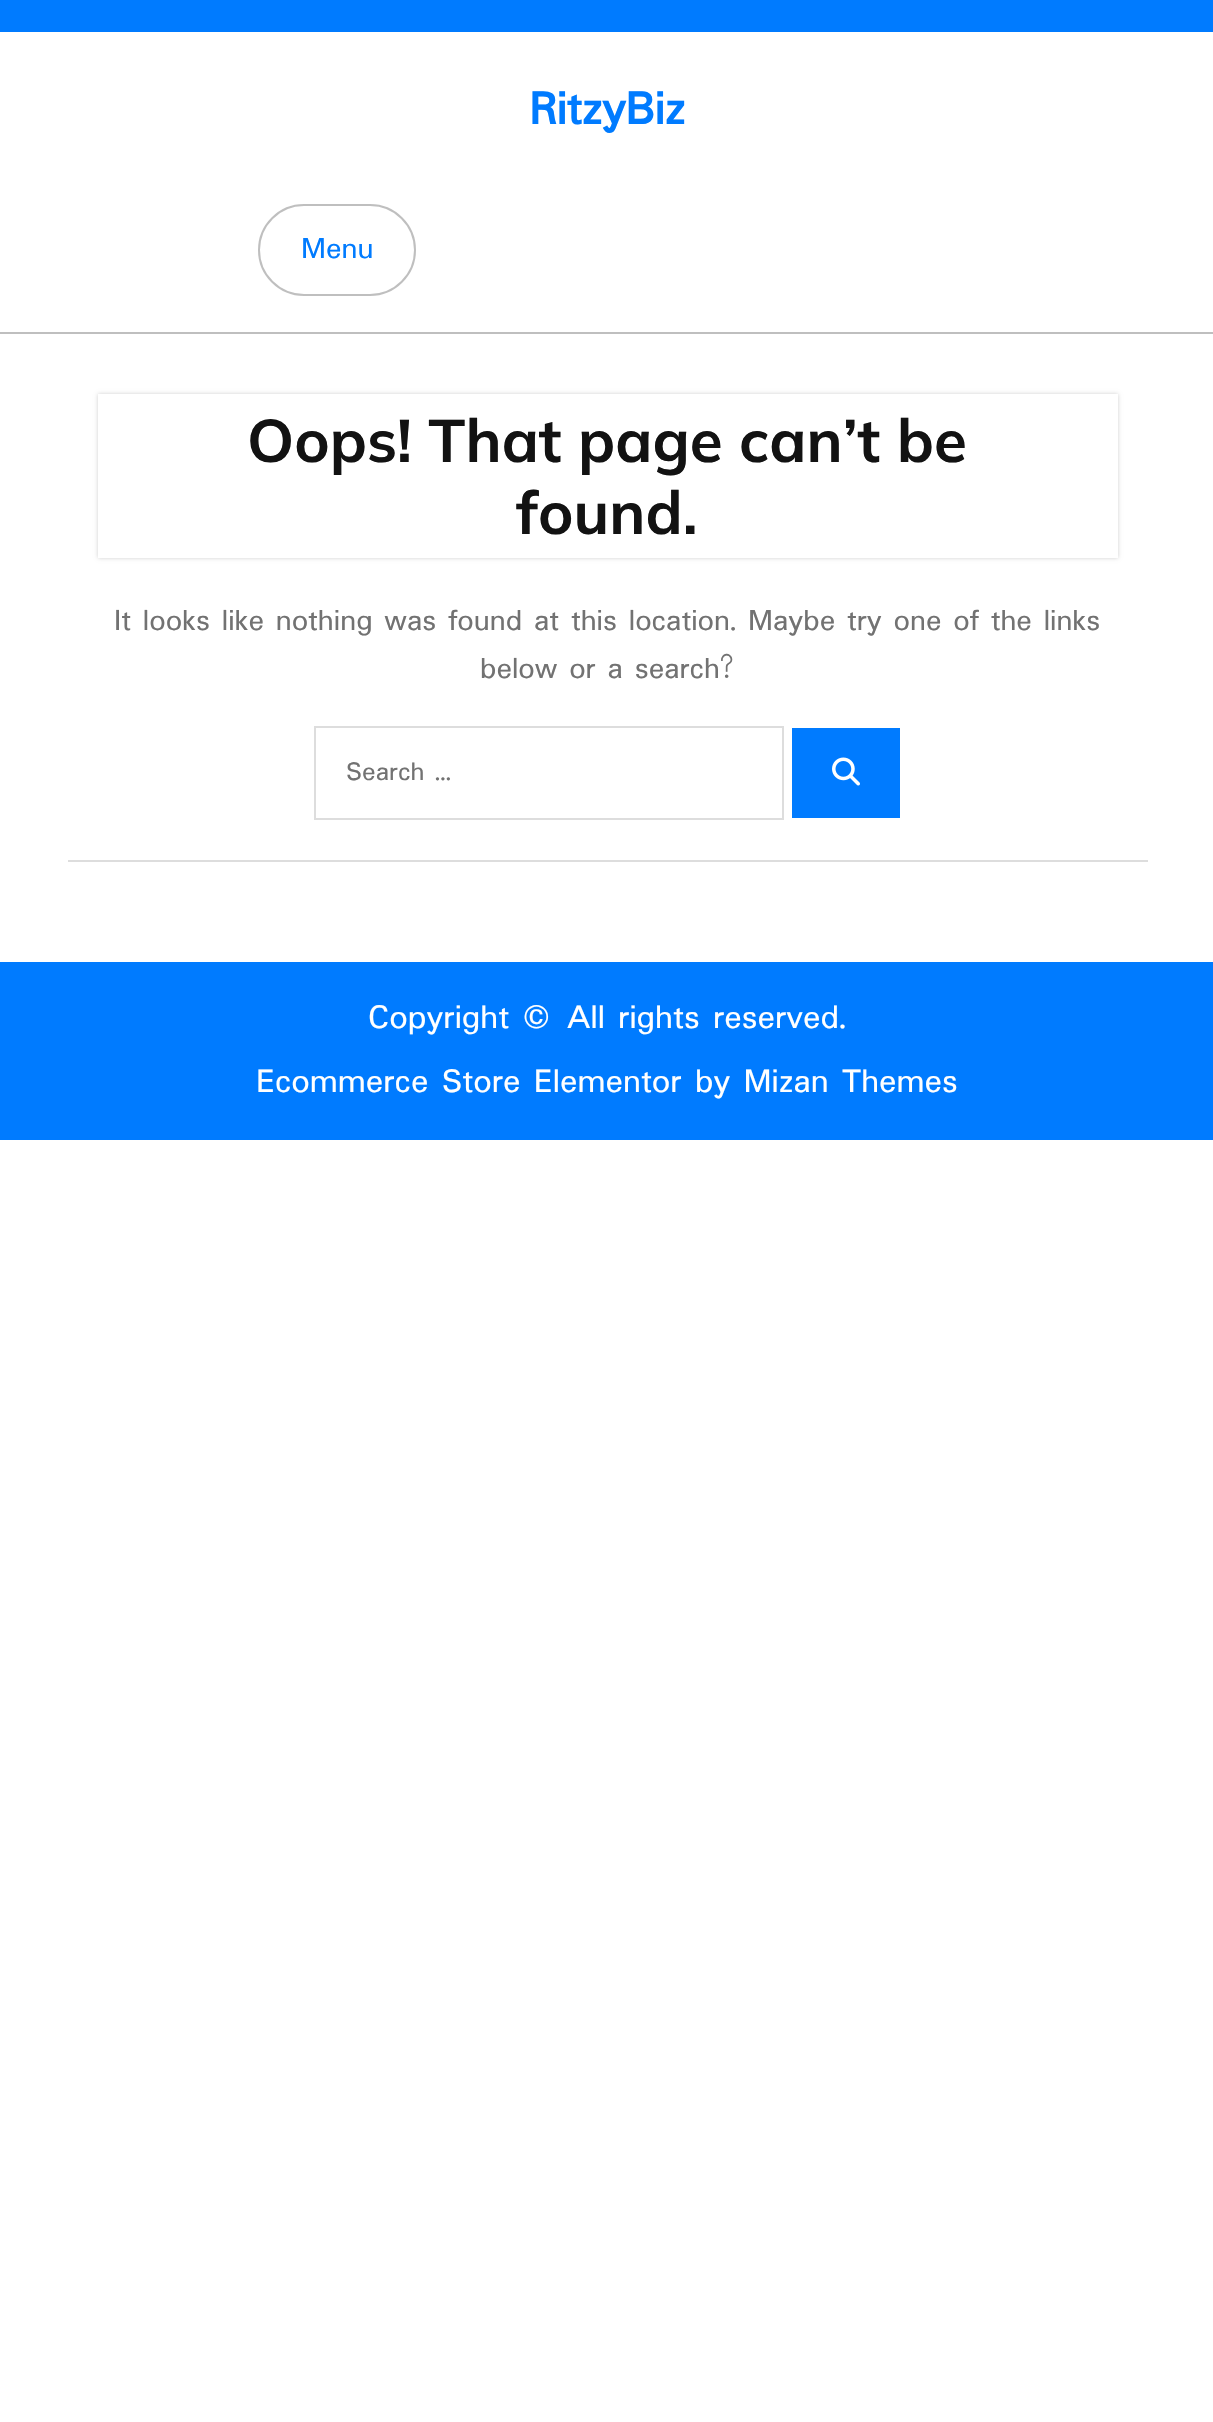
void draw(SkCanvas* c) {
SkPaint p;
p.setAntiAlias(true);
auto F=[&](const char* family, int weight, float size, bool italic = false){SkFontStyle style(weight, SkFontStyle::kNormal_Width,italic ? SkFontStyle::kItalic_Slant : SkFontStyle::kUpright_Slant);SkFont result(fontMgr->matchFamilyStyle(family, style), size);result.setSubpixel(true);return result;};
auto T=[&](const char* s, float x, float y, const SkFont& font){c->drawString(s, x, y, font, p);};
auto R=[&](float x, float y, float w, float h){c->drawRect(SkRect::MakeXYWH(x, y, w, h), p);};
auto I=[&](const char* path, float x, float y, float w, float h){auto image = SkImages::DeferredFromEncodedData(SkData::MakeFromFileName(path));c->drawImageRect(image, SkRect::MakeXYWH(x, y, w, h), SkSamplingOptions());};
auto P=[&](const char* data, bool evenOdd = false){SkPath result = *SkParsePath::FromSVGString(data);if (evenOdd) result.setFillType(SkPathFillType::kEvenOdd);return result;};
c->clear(0xffffffff);
p.setColor(0xff007bff);
R(0,0,1213,32);
p.setColor(0xffbfbfbf);
R(0,332,1213,2);
auto f1 = F("Padauk",700,50);
p.setColor(0xff007bff);
T("RitzyBiz",529,124,f1);
p.setStroke(true);
p.setStrokeWidth(2);
p.setColor(0xffbfbfbf);
c->drawRoundRect(SkRect::MakeXYWH(259,205,156,90),45,45,p);
auto f2 = F("Padauk",400,32);
p.setStroke(false);
p.setColor(0xff007bff);
T("Menu",301,258,f2);
p.setColor(0xffdddddd);
R(68,860,1080,2);
c->save();
c->clipPath(P("M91 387h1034v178h-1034zm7 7h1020v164h-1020z",true),true);
p.setColor(0xffcfcfcf);
p.setMaskFilter(SkMaskFilter::MakeBlur(kNormal_SkBlurStyle, 2));
c->drawRect(SkRect::MakeXYWH(98,394,1020,164),p);
p.setMaskFilter(nullptr);
c->restore();
auto f3 = F("Mulish",700,60);
p.setColor(0xff121212);
T("Oops! That page can’t be",247,462,f3);
T("found.",516,534,f3);
p.setColor(0xff727272);
T("It looks like nothing was found at this location. Maybe try one of the links",114,630,f2);
T("below or a search?",480,678,f2);
p.setStroke(true);
p.setColor(0xffdddddd);
c->drawRect(SkRect::MakeXYWH(315,727,468,92),p);
auto f4 = F("Padauk",400,28);
p.setStroke(false);
p.setColor(0xff727272);
T("Search …",346,780,f4);
p.setColor(0xff007bff);
R(792,728,108,90);
I("1.png",832,757,28,29);
R(0,962,1213,178);
auto f5 = F("Padauk",400,36);
p.setColor(0xffffffff);
T("Copyright © All rights reserved.",368,1028,f5);
T("Ecommerce Store Elementor by Mizan Themes",256,1092,f5);
}
